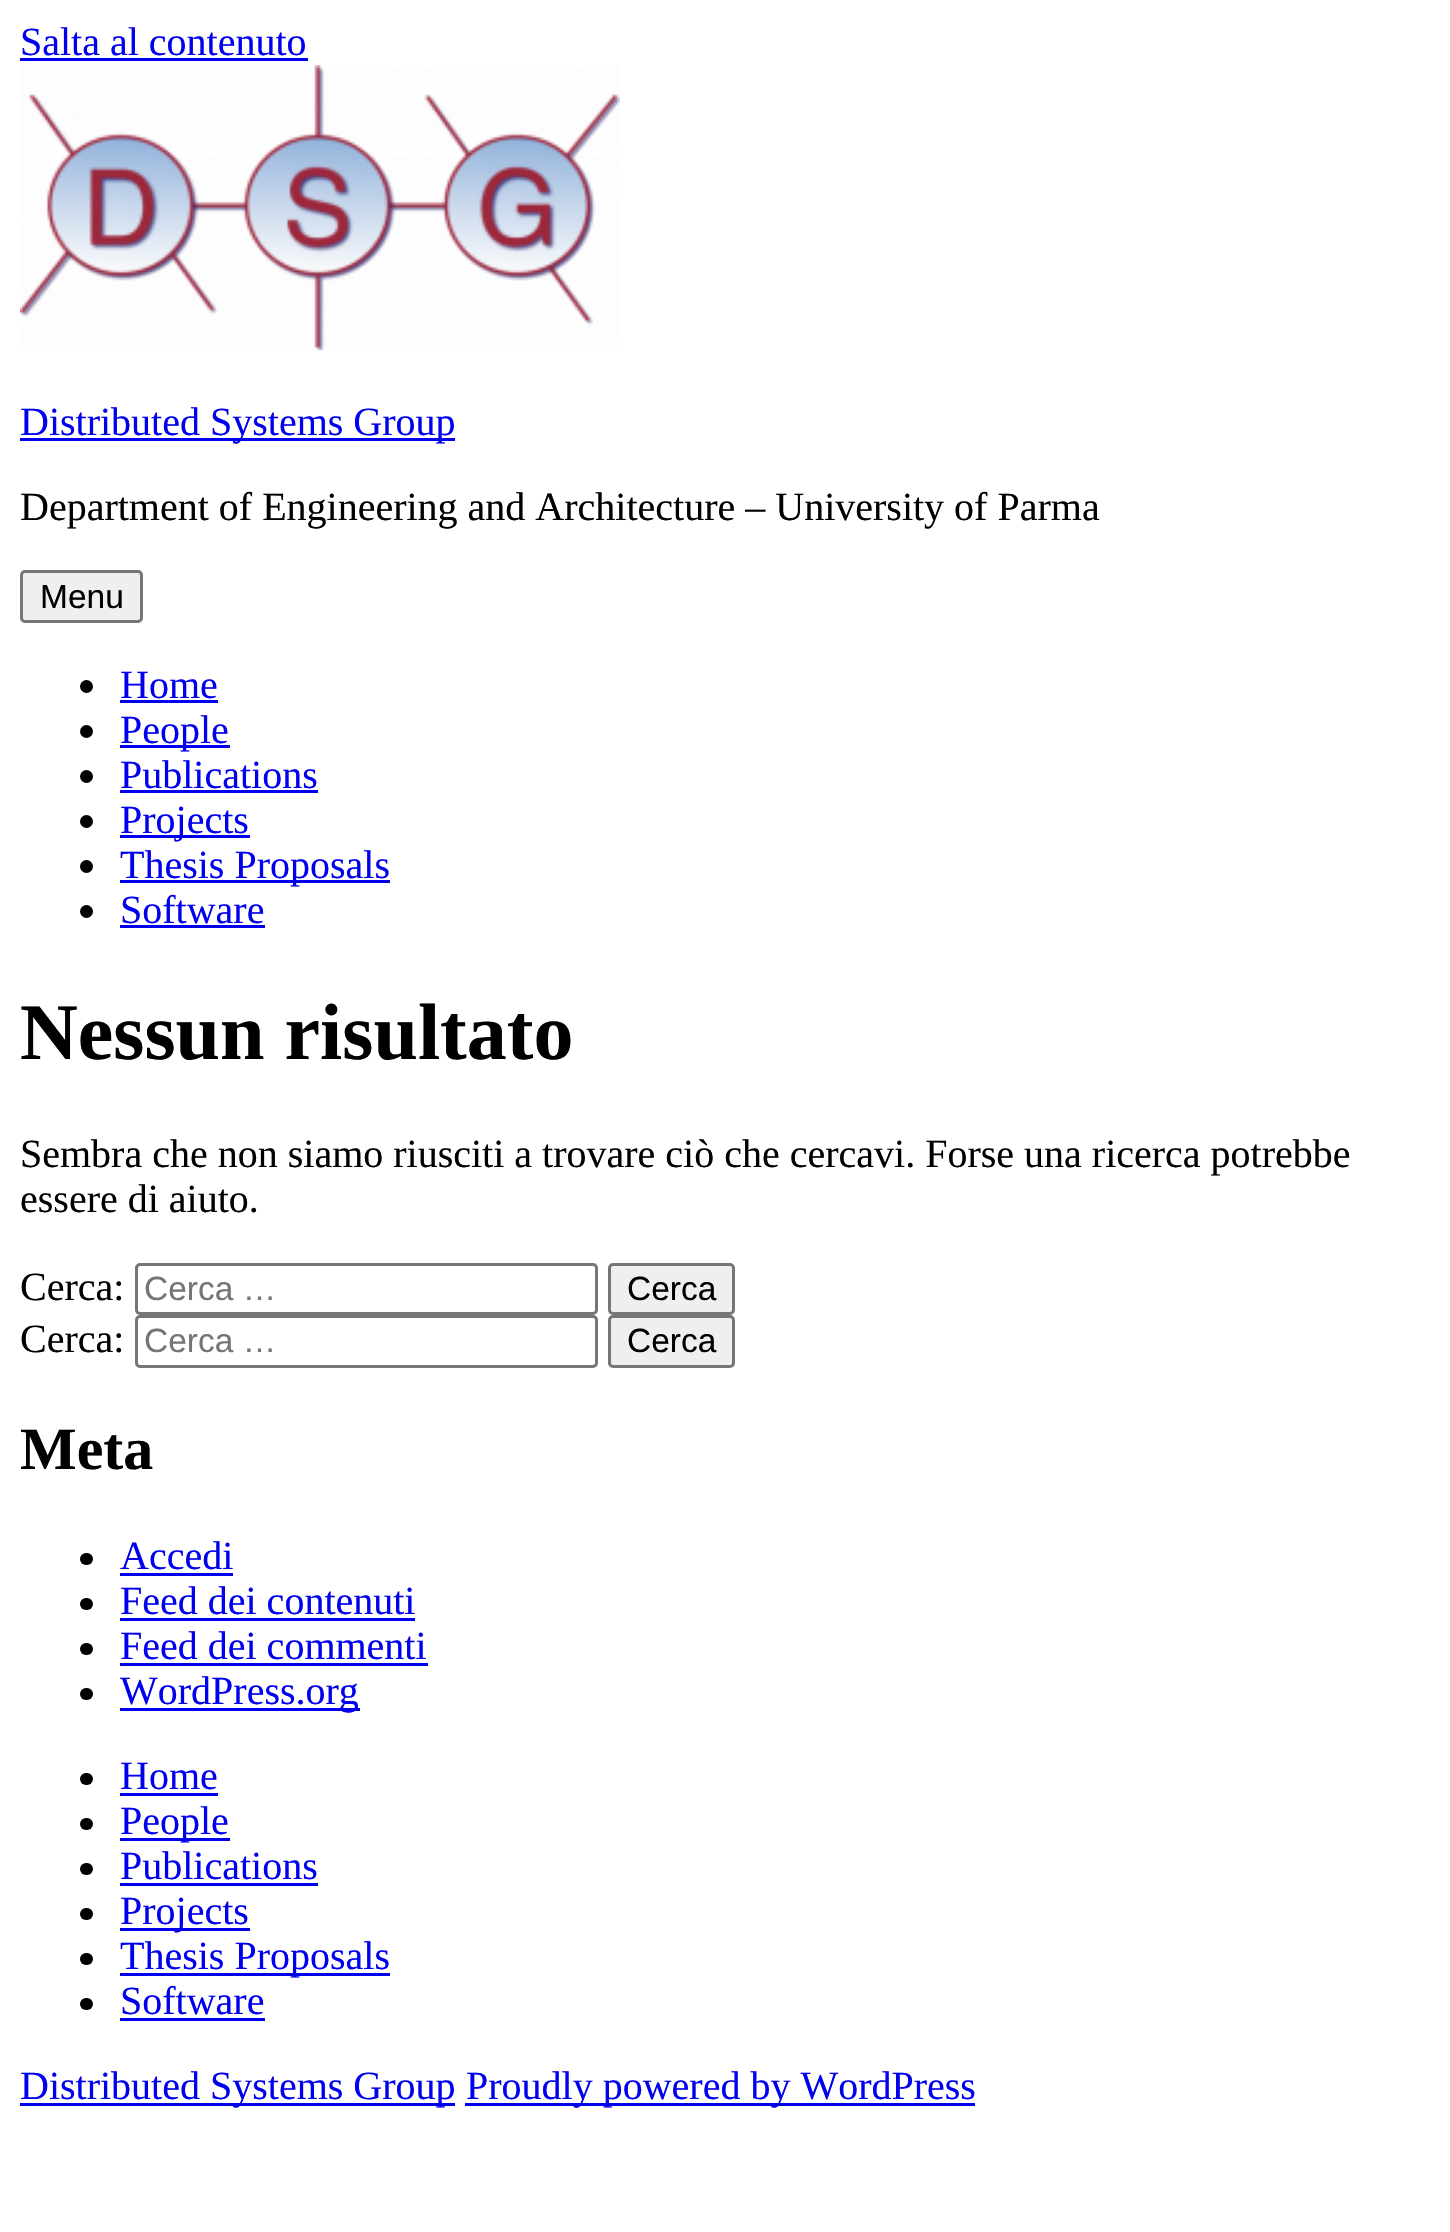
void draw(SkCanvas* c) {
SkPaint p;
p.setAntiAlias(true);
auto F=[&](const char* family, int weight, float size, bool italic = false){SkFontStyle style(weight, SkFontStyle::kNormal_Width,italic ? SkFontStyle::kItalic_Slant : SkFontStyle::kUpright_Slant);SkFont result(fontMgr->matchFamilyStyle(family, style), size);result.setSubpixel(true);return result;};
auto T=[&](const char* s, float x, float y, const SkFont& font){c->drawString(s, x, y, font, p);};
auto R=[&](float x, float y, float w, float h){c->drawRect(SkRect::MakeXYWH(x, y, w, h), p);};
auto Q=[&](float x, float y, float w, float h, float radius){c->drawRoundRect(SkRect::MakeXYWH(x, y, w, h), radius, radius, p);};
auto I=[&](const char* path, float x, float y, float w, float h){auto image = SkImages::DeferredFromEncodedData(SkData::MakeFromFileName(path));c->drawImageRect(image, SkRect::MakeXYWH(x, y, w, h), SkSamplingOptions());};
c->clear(0xffffffff);
auto f1 = F("Liberation Serif",400,40);
p.setColor(0xff0000ee);
T("Salta al contenuto",20,55,f1);
R(20,58,288,3);
I("1.png",20,65,600,285);
R(20,438,435,3);
T("Distributed Systems Group",20,435,f1);
p.setColor(0xff000000);
T("Department of Engineering and Architecture – University of Parma",20,520,f1);
p.setColor(0xffefefef);
c->drawRoundRect(SkRect::MakeXYWH(21.5,571.5,120,50),3.5,3.5,p);
p.setStroke(true);
p.setStrokeWidth(3);
p.setColor(0xff767676);
c->drawRoundRect(SkRect::MakeXYWH(21.5,571.5,120,50),3.5,3.5,p);
auto f2 = F("Liberation Sans",400,33.5);
p.setStroke(false);
p.setColor(0xff000000);
T("Menu",40,608,f2);
c->drawCircle(86.5,686.5,6.5,p);
p.setColor(0xff0000ee);
T("Home",120,698,f1);
R(120,700,98,3);
p.setColor(0xff000000);
c->drawCircle(86.5,731.5,6.5,p);
p.setColor(0xff0000ee);
R(120,745,110,3);
T("People",120,743,f1);
p.setColor(0xff000000);
c->drawCircle(86.5,776.5,6.5,p);
p.setColor(0xff0000ee);
T("Publications",120,788,f1);
R(120,790,198,3);
p.setColor(0xff000000);
c->drawCircle(86.5,821.5,6.5,p);
p.setColor(0xff0000ee);
R(120,835,130,3);
T("Projects",120,833,f1);
p.setColor(0xff000000);
c->drawCircle(86.5,866.5,6.5,p);
p.setColor(0xff0000ee);
R(120,880,270,3);
T("Thesis Proposals",120,878,f1);
p.setColor(0xff000000);
c->drawCircle(86.5,911.5,6.5,p);
p.setColor(0xff0000ee);
T("Software",120,923,f1);
R(120,925,145,3);
auto f3 = F("Liberation Serif",700,80);
p.setColor(0xff000000);
T("Nessun risultato",20,1059,f3);
T("Sembra che non siamo riusciti a trovare ciò che cercavi. Forse una ricerca potrebbe",20,1167,f1);
T("essere di aiuto.",20,1212,f1);
T("Cerca:",20,1300,f1);
p.setStroke(true);
p.setColor(0xff767676);
c->drawRoundRect(SkRect::MakeXYWH(136.5,1264.5,460,49),3.5,3.5,p);
p.setStroke(false);
p.setColor(0xff757575);
T("Cerca …",144,1300,f2);
p.setColor(0xffefefef);
c->drawRoundRect(SkRect::MakeXYWH(609.5,1264.5,124,49),3.5,3.5,p);
p.setStroke(true);
p.setColor(0xff767676);
c->drawRoundRect(SkRect::MakeXYWH(609.5,1264.5,124,49),3.5,3.5,p);
p.setStroke(false);
p.setColor(0xff000000);
T("Cerca",627,1300,f2);
T("Cerca:",20,1352,f1);
p.setStroke(true);
p.setColor(0xff767676);
c->drawRoundRect(SkRect::MakeXYWH(136.5,1316.5,460,50),3.5,3.5,p);
p.setStroke(false);
p.setColor(0xff757575);
T("Cerca …",144,1352,f2);
p.setColor(0xffefefef);
c->drawRoundRect(SkRect::MakeXYWH(609.5,1316.5,124,50),3.5,3.5,p);
p.setStroke(true);
p.setColor(0xff767676);
c->drawRoundRect(SkRect::MakeXYWH(609.5,1316.5,124,50),3.5,3.5,p);
p.setStroke(false);
p.setColor(0xff000000);
T("Cerca",627,1352,f2);
auto f4 = F("Liberation Serif",700,60);
T("Meta",20,1469,f4);
Q(80,1553,13,12,6);
p.setColor(0xff0000ee);
T("Accedi",120,1569,f1);
R(120,1573,113,3);
p.setColor(0xff000000);
Q(80,1598,13,12,6);
p.setColor(0xff0000ee);
T("Feed dei contenuti",120,1614,f1);
R(120,1618,295,3);
p.setColor(0xff000000);
Q(80,1643,13,12,6);
p.setColor(0xff0000ee);
T("Feed dei commenti",120,1659,f1);
R(120,1663,308,3);
p.setColor(0xff000000);
Q(80,1688,13,12,6);
p.setColor(0xff0000ee);
R(120,1708,240,3);
T("WordPress.org",120,1704,f1);
p.setColor(0xff000000);
Q(80,1773,13,12,6);
p.setColor(0xff0000ee);
T("Home",120,1789,f1);
R(120,1793,98,3);
p.setColor(0xff000000);
Q(80,1818,13,12,6);
p.setColor(0xff0000ee);
R(120,1838,110,3);
T("People",120,1834,f1);
p.setColor(0xff000000);
Q(80,1863,13,12,6);
p.setColor(0xff0000ee);
T("Publications",120,1879,f1);
R(120,1883,198,3);
p.setColor(0xff000000);
Q(80,1908,13,12,6);
p.setColor(0xff0000ee);
R(120,1928,130,3);
T("Projects",120,1924,f1);
p.setColor(0xff000000);
Q(80,1953,13,12,6);
p.setColor(0xff0000ee);
R(120,1973,270,3);
T("Thesis Proposals",120,1969,f1);
p.setColor(0xff000000);
Q(80,1998,13,12,6);
p.setColor(0xff0000ee);
T("Software",120,2014,f1);
R(120,2018,145,3);
R(20,2103,435,3);
T("Distributed Systems Group",20,2099,f1);
R(465,2103,510,3);
T("Proudly powered by WordPress",466,2099,f1);
}
